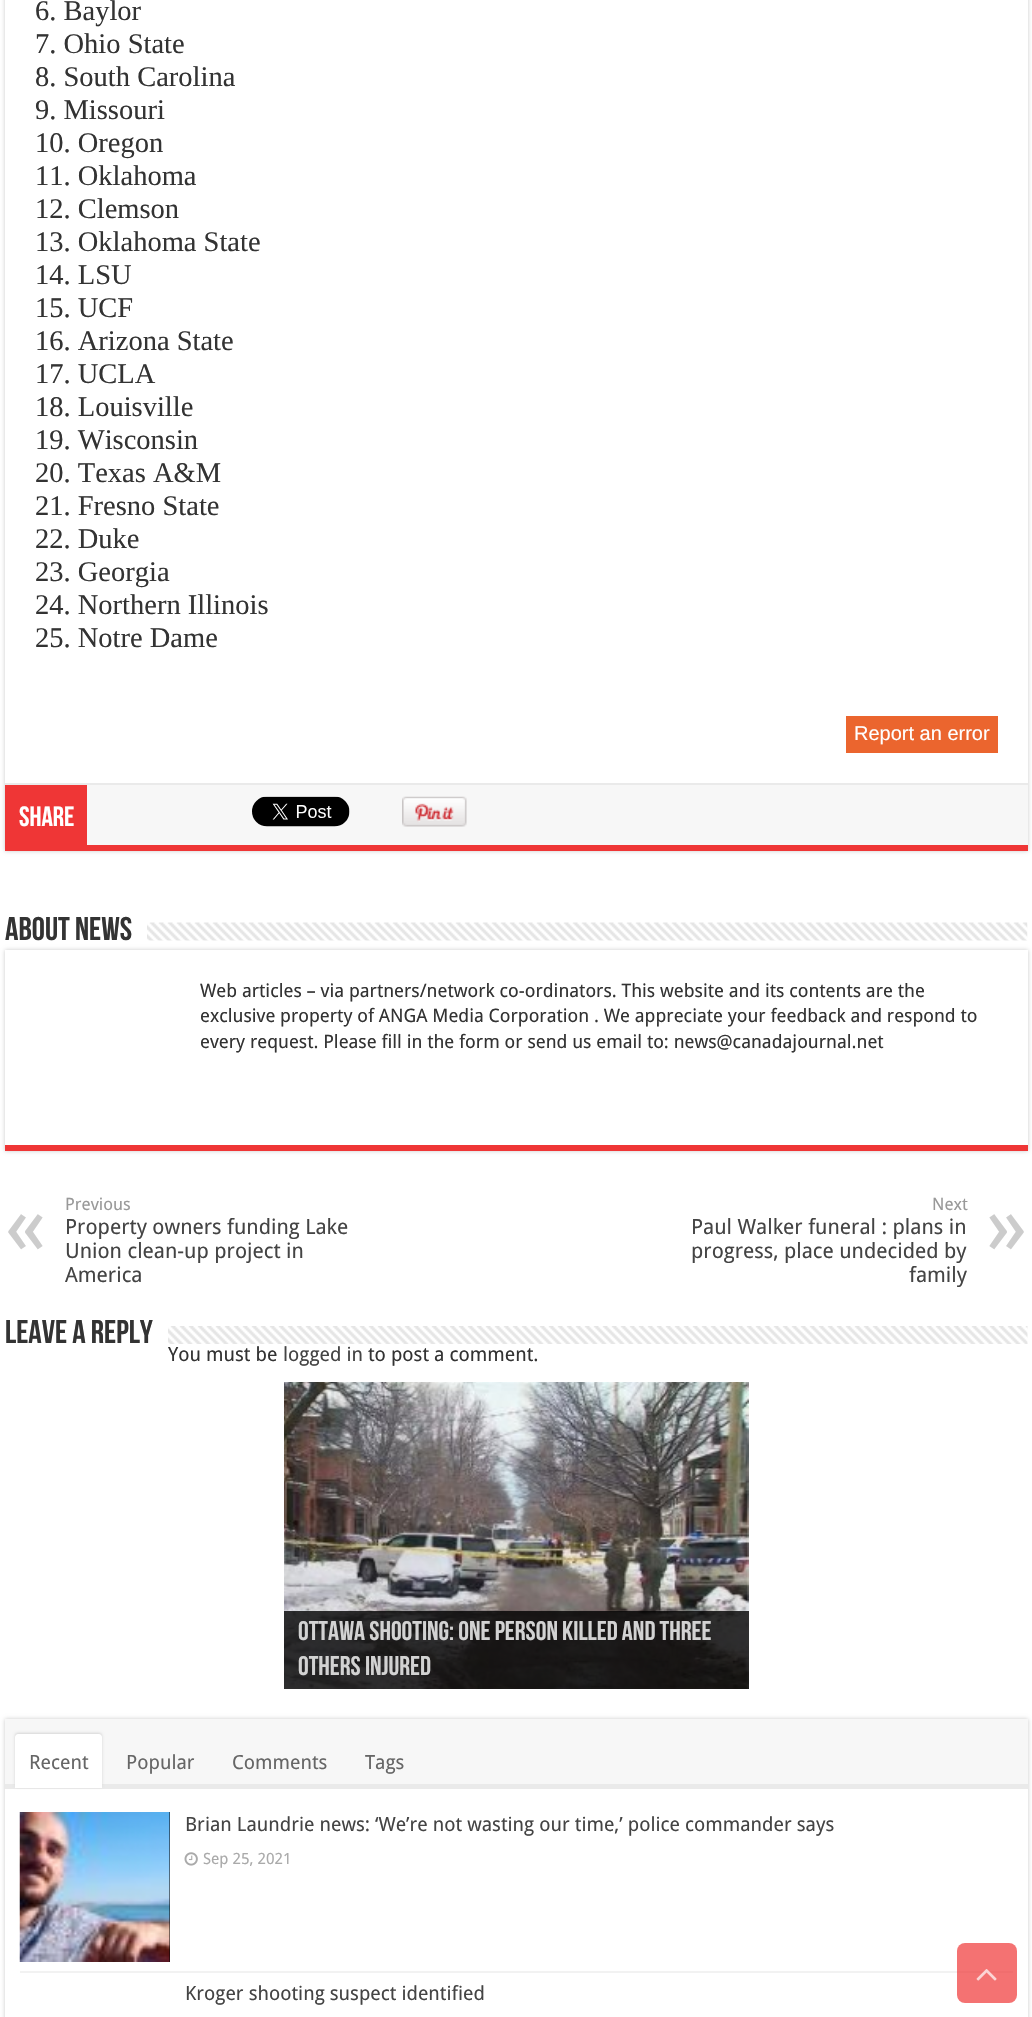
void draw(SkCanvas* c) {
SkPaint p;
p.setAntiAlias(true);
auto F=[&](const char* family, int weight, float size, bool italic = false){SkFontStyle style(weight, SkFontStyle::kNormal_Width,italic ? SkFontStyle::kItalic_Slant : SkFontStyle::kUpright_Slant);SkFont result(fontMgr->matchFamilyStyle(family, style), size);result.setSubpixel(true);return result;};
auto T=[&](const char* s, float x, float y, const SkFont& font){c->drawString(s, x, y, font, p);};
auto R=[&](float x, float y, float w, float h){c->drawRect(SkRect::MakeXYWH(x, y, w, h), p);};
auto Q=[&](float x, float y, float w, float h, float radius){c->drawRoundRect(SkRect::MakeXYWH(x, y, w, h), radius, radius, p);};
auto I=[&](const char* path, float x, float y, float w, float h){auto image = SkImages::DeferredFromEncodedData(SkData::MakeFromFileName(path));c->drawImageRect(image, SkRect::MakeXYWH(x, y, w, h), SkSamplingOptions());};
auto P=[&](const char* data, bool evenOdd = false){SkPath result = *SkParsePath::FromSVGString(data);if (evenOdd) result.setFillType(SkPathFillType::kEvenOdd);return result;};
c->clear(0xffffffff);
p.setColor(0xffcacaca);
p.setMaskFilter(SkMaskFilter::MakeBlur(kNormal_SkBlurStyle, 2));
c->drawRect(SkRect::MakeXYWH(5,-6,1023,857),p);
p.setMaskFilter(nullptr);
p.setColor(0xffffffff);
R(5,0,1023,783);
p.setColor(0xffef3636);
R(5,845,1023,6);
auto f1 = F("Liberation Serif",400,28.5);
p.setColor(0xff333333);
T("6. Baylor",35,20,f1);
T("7. Ohio State",35,53,f1);
T("8. South Carolina",35,86,f1);
T("9. Missouri",35,119,f1);
T("10. Oregon",35,152,f1);
T("11. Oklahoma",35,185,f1);
T("12. Clemson",35,218,f1);
T("13. Oklahoma State",35,251,f1);
T("14. LSU",35,284,f1);
T("15. UCF",35,317,f1);
T("16. Arizona State",35,350,f1);
T("17. UCLA",35,383,f1);
T("18. Louisville",35,416,f1);
T("19. Wisconsin",35,449,f1);
T("20. Texas A&M",35,482,f1);
T("21. Fresno State",35,515,f1);
T("22. Duke",35,548,f1);
T("23. Georgia",35,581,f1);
T("24. Northern Illinois",35,614,f1);
T("25. Notre Dame",35,647,f1);
p.setColor(0xffeb652e);
R(846,716,152,37);
auto f2 = F("Liberation Sans",400,20);
p.setColor(0xffffffff);
T("Report an error",854,740,f2);
p.setColor(0xfff7f7f7);
R(87,785,941,60);
p.setColor(0xffeaeaea);
R(5,783,1023,2);
p.setColor(0xffef3636);
R(5,785,82,60);
auto f3 = F("Bebas Neue",700,28);
p.setColor(0xffffffff);
T("Share",19,826,f3);
I("1.png",252,796,98,31);
I("2.png",402,796,65,31);
auto f4 = F("Bebas Neue",700,33);
p.setColor(0xff333333);
T("About News",5,940,f4);
I("3.png",147,922,881,19);
p.setColor(0xffcacaca);
p.setMaskFilter(SkMaskFilter::MakeBlur(kNormal_SkBlurStyle, 2));
c->drawRect(SkRect::MakeXYWH(5,950,1023,201),p);
p.setMaskFilter(nullptr);
p.setColor(0xffffffff);
R(5,950,1023,195);
p.setColor(0xffef3636);
R(5,1145,1023,6);
auto f5 = F("Droid Sans",400,18.5);
p.setColor(0xff333333);
T("Web articles – via partners/network co-ordinators. This website and its contents are the",200,997,f5);
T("exclusive property of ANGA Media Corporation . We appreciate your feedback and respond to",200,1022,f5);
T("every request. Please fill in the form or send us email to: news@canadajournal.net",200,1048,f5);
auto f6 = F("Droid Sans",400,17);
p.setColor(0xff999999);
T("Previous",65,1210,f6);
auto f7 = F("Droid Sans",400,84);
p.setColor(0xffcccccc);
T("«",5,1254,f7);
auto f8 = F("Droid Sans",400,21);
p.setColor(0xff444444);
T("Property owners funding Lake",65,1234,f8);
T("Union clean-up project in",65,1258,f8);
T("America",65,1282,f8);
p.setColor(0xff999999);
T("Next",932,1210,f6);
p.setColor(0xff444444);
T("Paul Walker funeral : plans in",691,1234,f8);
p.setColor(0xffcccccc);
T("»",986,1254,f7);
p.setColor(0xff444444);
T("progress, place undecided by",691,1258,f8);
T("family",909,1282,f8);
p.setColor(0xff333333);
T("Leave a Reply",5,1343,f4);
I("4.png",168,1326,860,18);
auto f9 = F("Droid Sans",400,19.5);
T("You must be",168,1361,f9);
p.setColor(0xff444444);
T("logged in",283,1361,f9);
p.setColor(0xff333333);
T("to post a comment.",368,1361,f9);
I("5.png",284,1382,465,307);
p.setColor(0xcc000000);
R(284,1611,465,78);
auto f10 = F("Bebas Neue",700,27);
p.setColor(0xffd2d2d2);
T("Ottawa shooting: One person killed and three",298,1640,f10);
T("others injured",298,1675,f10);
p.setColor(0xffcacaca);
p.setMaskFilter(SkMaskFilter::MakeBlur(kNormal_SkBlurStyle, 2));
c->drawRect(SkRect::MakeXYWH(5,1719,1023,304),p);
p.setMaskFilter(nullptr);
p.setColor(0xffffffff);
R(5,1789,1023,228);
p.setColor(0xfff7f7f7);
R(5,1719,1023,65);
p.setColor(0xffeaeaea);
R(5,1784,1023,5);
p.setColor(0xffd4d4d4);
p.setMaskFilter(SkMaskFilter::MakeBlur(kNormal_SkBlurStyle, 1.5));
c->drawRoundRect(SkRect::MakeXYWH(15,1733,87,54),3,3,p);
p.setMaskFilter(nullptr);
p.setColor(0xffffffff);
c->drawPath(P("M18 1734h81c1.5 0 3 1.5 3 3v51h-87v-51c0-1.5 1.5-3 3-3z"),p);
p.setColor(0xff666666);
T("Recent",29,1769,f9);
T("Popular",126,1769,f9);
T("Comments",232,1769,f9);
T("Tags",365,1769,f9);
p.setColor(0xfff2f2f2);
R(20,1971,993,2);
p.setColor(0xff000000);
R(169,1812,1,150);
I("6.png",19,1812,151,150);
p.setColor(0xff444444);
T("Brian Laundrie news: ‘We’re not wasting our time,’ police commander says",185,1831,f9);
I("7.png",184,1852,14,14);
auto f11 = F("Droid Sans",400,15.5);
p.setColor(0xffaaaaaa);
T("Sep 25, 2021",203,1864,f11);
p.setColor(0xff444444);
T("Kroger shooting suspect identified",185,2000,f9);
p.setColor(0xb3ef3636);
Q(957,1943,60,60,8);
I("8.png",976,1969,21,12);
}
